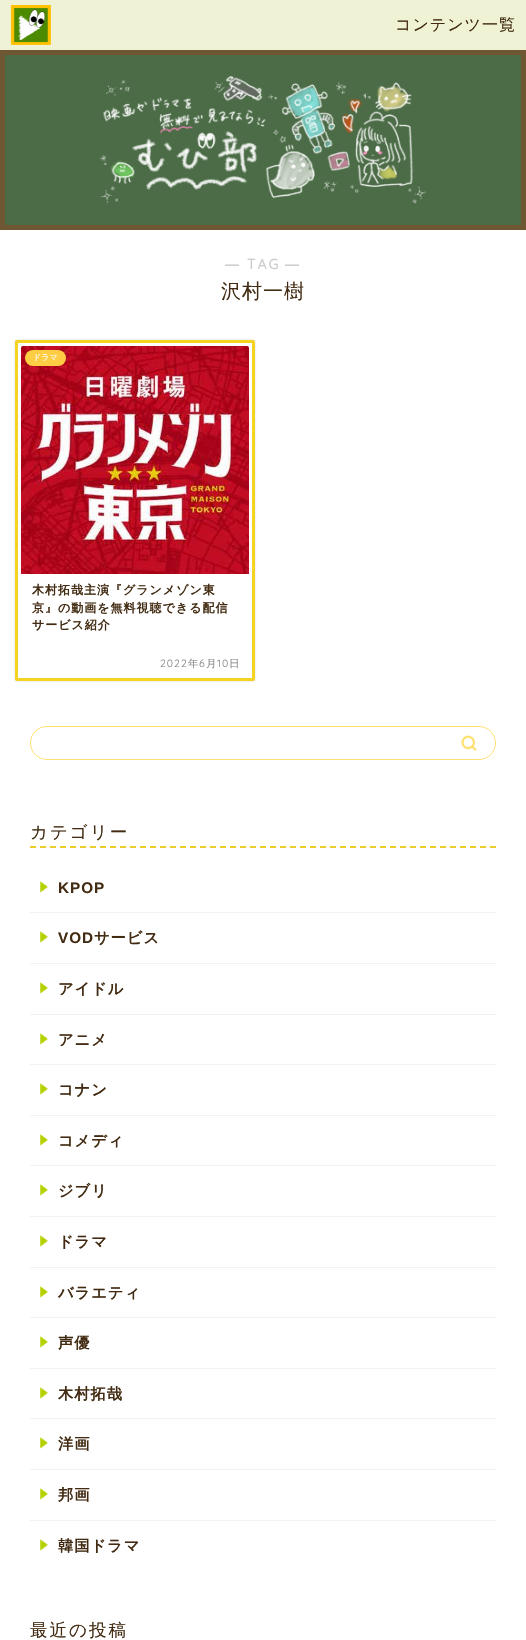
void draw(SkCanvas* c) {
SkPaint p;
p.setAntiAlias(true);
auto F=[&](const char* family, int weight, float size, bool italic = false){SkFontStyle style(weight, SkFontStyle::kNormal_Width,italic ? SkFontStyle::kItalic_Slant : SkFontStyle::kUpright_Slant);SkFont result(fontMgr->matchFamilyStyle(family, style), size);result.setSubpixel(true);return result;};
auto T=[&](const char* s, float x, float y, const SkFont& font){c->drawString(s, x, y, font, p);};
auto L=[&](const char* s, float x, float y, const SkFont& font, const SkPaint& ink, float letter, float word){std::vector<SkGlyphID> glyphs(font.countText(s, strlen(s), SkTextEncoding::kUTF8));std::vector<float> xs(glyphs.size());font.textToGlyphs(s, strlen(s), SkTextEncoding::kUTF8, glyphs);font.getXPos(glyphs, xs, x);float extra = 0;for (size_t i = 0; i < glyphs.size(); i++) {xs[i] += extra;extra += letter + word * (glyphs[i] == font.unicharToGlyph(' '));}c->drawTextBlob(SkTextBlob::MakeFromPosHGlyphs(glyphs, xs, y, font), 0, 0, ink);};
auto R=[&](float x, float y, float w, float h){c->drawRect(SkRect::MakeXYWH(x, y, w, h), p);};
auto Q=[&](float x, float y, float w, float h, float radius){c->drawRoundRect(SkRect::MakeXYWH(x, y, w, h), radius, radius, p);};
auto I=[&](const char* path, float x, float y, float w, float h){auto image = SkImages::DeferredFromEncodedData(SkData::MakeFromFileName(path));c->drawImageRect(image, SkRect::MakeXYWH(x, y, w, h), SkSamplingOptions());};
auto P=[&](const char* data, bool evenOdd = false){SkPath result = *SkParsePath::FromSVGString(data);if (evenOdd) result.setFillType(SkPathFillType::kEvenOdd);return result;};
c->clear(0xffffffff);
p.setColor(0xffeff2d5);
R(0,0,526,50);
I("1.png",10,5,41,40);
auto f1 = F("WenQuanYi Zen Hei",500,16);
p.setColor(0xff422b12);
L("コンテンツ一覧",395,30,f1,p,1,0);
p.setColor(0xff4b6c46);
c->drawRect(SkRect::MakeXYWH(2.5,52.5,521,175),p);
p.setStroke(true);
p.setStrokeWidth(5);
p.setColor(0xff705734);
c->drawRect(SkRect::MakeXYWH(2.5,52.5,521,175),p);
I("2.png",100,76,326,128);
auto f2 = F("Liberation Sans",700,14);
p.setStroke(false);
p.setColor(0xffcccccc);
L("―",225,269,f2,p,2,0);
auto f3 = F("Quicksand",700,14);
L("TAG",247,269,f3,p,2,0);
L("―",285,269,f2,p,2,0);
auto f4 = F("WenQuanYi Zen Hei",500,20);
p.setColor(0xff422b12);
L("沢村一樹",221,298,f4,p,1,0);
p.setColor(0x2e000000);
p.setMaskFilter(SkMaskFilter::MakeBlur(kNormal_SkBlurStyle, 1));
c->drawRoundRect(SkRect::MakeXYWH(15,340,240,341),2,2,p);
p.setMaskFilter(nullptr);
p.setColor(0xffffffff);
c->drawRoundRect(SkRect::MakeXYWH(16.5,341.5,237,338),.5,.5,p);
p.setStroke(true);
p.setStrokeWidth(3);
p.setColor(0xfff4d420);
c->drawRoundRect(SkRect::MakeXYWH(16.5,341.5,237,338),.5,.5,p);
I("3.png",21,346,228,228);
p.setStroke(false);
p.setColor(0xffffcd44);
Q(25,350,41,16,8);
auto f5 = F("WenQuanYi Zen Hei",500,8);
p.setColor(0xffffffff);
T("ドラマ",33,360,f5);
auto f6 = F("WenQuanYi Zen Hei",700,12);
p.setColor(0xff422b12);
L("木村拓哉主演『グランメゾン東",32,594,f6,p,1,0);
L("京』の動画を無料視聴できる配信",32,612,f6,p,1,0);
L("サービス紹介",32,629,f6,p,1,0);
auto f7 = F("Quicksand",300,10.5);
p.setColor(0xff888888);
L("2022",160,667,f7,p,1,0);
auto f8 = F("WenQuanYi Zen Hei",500,10.5);
L("年",188,667,f8,p,1,0);
L("6",199,667,f7,p,1,0);
L("月",206,667,f8,p,1,0);
L("10",217,667,f7,p,1,0);
L("日",229,667,f8,p,1,0);
p.setStroke(true);
p.setStrokeWidth(1);
p.setColor(0xffffe073);
c->drawRoundRect(SkRect::MakeXYWH(30.5,726.5,465,33),16.5,16.5,p);
I("4.png",461,735,16,16);
p.setStrokeWidth(2);
p.setColor(0xffeacc2b);
p.setPathEffect(SkDashPathEffect::Make({{6,4}}, 0));
c->drawPath(P("M30 847h466"),p);
p.setPathEffect(nullptr);
auto f9 = F("WenQuanYi Zen Hei",500,17.5);
p.setStroke(false);
p.setColor(0xff422b12);
L("カテゴリー",30,838,f9,p,2,0);
p.setColor(0xfff2f2f2);
R(30,912,466,1);
I("5.png",40,881,8,12);
auto f10 = F("Liberation Sans",700,15.25);
p.setColor(0xff422b12);
L("KPOP",58,893,f10,p,1,0);
p.setColor(0xfff2f2f2);
R(30,963,466,1);
I("5.png",40,931,8,12);
p.setColor(0xff422b12);
L("VOD",58,943,f10,p,1,0);
auto f11 = F("WenQuanYi Zen Hei",700,15.25);
L("サービス",94,943,f11,p,1,0);
p.setColor(0xfff2f2f2);
R(30,1014,466,1);
I("5.png",40,982,8,12);
p.setColor(0xff422b12);
L("アイドル",58,994,f11,p,1,0);
p.setColor(0xfff2f2f2);
R(30,1064,466,1);
I("5.png",40,1033,8,12);
p.setColor(0xff422b12);
L("アニメ",58,1045,f11,p,1,0);
p.setColor(0xfff2f2f2);
R(30,1115,466,1);
I("5.png",40,1083,8,12);
p.setColor(0xff422b12);
L("コナン",58,1095,f11,p,1,0);
p.setColor(0xfff2f2f2);
R(30,1165,466,1);
I("5.png",40,1134,8,12);
p.setColor(0xff422b12);
L("コメディ",58,1146,f11,p,1,0);
p.setColor(0xfff2f2f2);
R(30,1216,466,1);
I("5.png",40,1184,8,12);
p.setColor(0xff422b12);
L("ジブリ",58,1196,f11,p,1,0);
p.setColor(0xfff2f2f2);
R(30,1267,466,1);
I("5.png",40,1235,8,12);
p.setColor(0xff422b12);
L("ドラマ",58,1247,f11,p,1,0);
p.setColor(0xfff2f2f2);
R(30,1317,466,1);
I("5.png",40,1286,8,12);
p.setColor(0xff422b12);
L("バラエティ",58,1298,f11,p,1,0);
p.setColor(0xfff2f2f2);
R(30,1368,466,1);
I("5.png",40,1336,8,12);
p.setColor(0xff422b12);
L("声優",58,1348,f11,p,1,0);
p.setColor(0xfff2f2f2);
R(30,1418,466,1);
I("5.png",40,1387,8,12);
p.setColor(0xff422b12);
L("木村拓哉",58,1399,f11,p,1,0);
p.setColor(0xfff2f2f2);
R(30,1469,466,1);
I("5.png",40,1437,8,12);
p.setColor(0xff422b12);
L("洋画",58,1449,f11,p,1,0);
p.setColor(0xfff2f2f2);
R(30,1520,466,1);
I("5.png",40,1488,8,12);
p.setColor(0xff422b12);
L("邦画",58,1500,f11,p,1,0);
I("5.png",40,1539,8,12);
L("韓国ドラマ",58,1551,f11,p,1,0);
L("最近の投稿",30,1636,f9,p,2,0);
}
